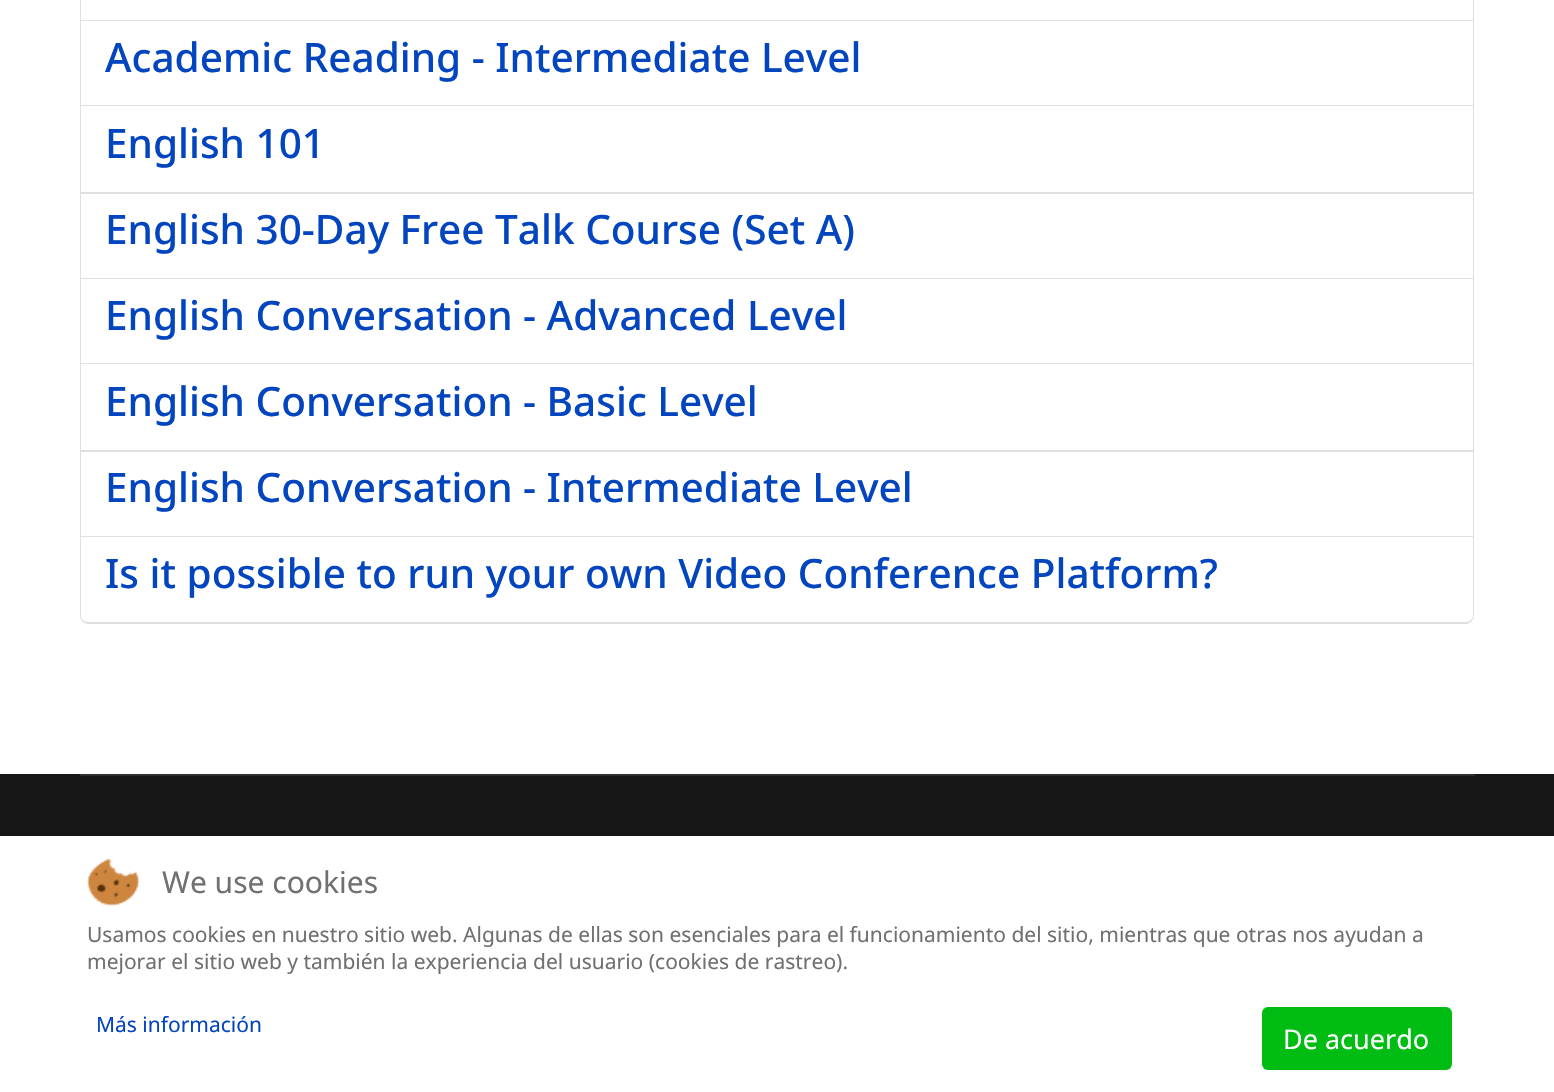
void draw(SkCanvas* c) {
SkPaint p;
p.setAntiAlias(true);
auto F=[&](const char* family, int weight, float size, bool italic = false){SkFontStyle style(weight, SkFontStyle::kNormal_Width,italic ? SkFontStyle::kItalic_Slant : SkFontStyle::kUpright_Slant);SkFont result(fontMgr->matchFamilyStyle(family, style), size);result.setSubpixel(true);return result;};
auto T=[&](const char* s, float x, float y, const SkFont& font){c->drawString(s, x, y, font, p);};
auto R=[&](float x, float y, float w, float h){c->drawRect(SkRect::MakeXYWH(x, y, w, h), p);};
auto Q=[&](float x, float y, float w, float h, float radius){c->drawRoundRect(SkRect::MakeXYWH(x, y, w, h), radius, radius, p);};
auto I=[&](const char* path, float x, float y, float w, float h){auto image = SkImages::DeferredFromEncodedData(SkData::MakeFromFileName(path));c->drawImageRect(image, SkRect::MakeXYWH(x, y, w, h), SkSamplingOptions());};
auto P=[&](const char* data, bool evenOdd = false){SkPath result = *SkParsePath::FromSVGString(data);if (evenOdd) result.setFillType(SkPathFillType::kEvenOdd);return result;};
c->clear(0xffffffff);
p.setColor(0xffdfdfdf);
c->drawPath(P("M1474-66v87l-1-1v-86z"),p);
p.setColor(0x1f000000);
c->drawPath(P("M1474 21h-1394l1-1h1392z"),p);
c->drawPath(P("M80 21v-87h1v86z"),p);
p.setColor(0xffdfdfdf);
c->drawPath(P("M1474 21v85l-1-1v-84z"),p);
p.setColor(0x1f000000);
c->drawPath(P("M1474 106h-1394l1-1h1392z"),p);
c->drawPath(P("M80 106v-85h1v84z"),p);
auto f1 = F("Noto Sans",500,40.5);
p.setColor(0xff0345bf);
T("Academic Reading - Intermediate Level",105,72,f1);
p.setColor(0xffdfdfdf);
c->drawPath(P("M1474 106v88l-1-2v-86z"),p);
p.setColor(0x1f000000);
c->drawPath(P("M1474 194h-1394l1-2h1392z"),p);
c->drawPath(P("M80 194v-88h1v86z"),p);
p.setColor(0xff0345bf);
T("English 101",105,158,f1);
p.setColor(0xffdfdfdf);
c->drawPath(P("M1474 194v85l-1-1v-84z"),p);
p.setColor(0x1f000000);
c->drawPath(P("M1474 279h-1394l1-1h1392z"),p);
c->drawPath(P("M80 279v-85h1v84z"),p);
p.setColor(0xff0345bf);
T("English 30-Day Free Talk Course (Set A)",105,244,f1);
p.setColor(0xffdfdfdf);
c->drawPath(P("M1474 279v85l-1-1v-84z"),p);
p.setColor(0x1f000000);
c->drawPath(P("M1474 364h-1394l1-1h1392z"),p);
c->drawPath(P("M80 364v-85h1v84z"),p);
p.setColor(0xff0345bf);
T("English Conversation - Advanced Level",105,330,f1);
p.setColor(0xffdfdfdf);
c->drawPath(P("M1474 364v88l-1-2v-86z"),p);
p.setColor(0x1f000000);
c->drawPath(P("M1474 452h-1394l1-2h1392z"),p);
c->drawPath(P("M80 452v-88h1v86z"),p);
p.setColor(0xff0345bf);
T("English Conversation - Basic Level",105,416,f1);
p.setColor(0xffdfdfdf);
c->drawPath(P("M1474 452v85l-1-1v-84z"),p);
p.setColor(0x1f000000);
c->drawPath(P("M1474 537h-1394l1-1h1392z"),p);
c->drawPath(P("M80 537v-85h1v84z"),p);
p.setColor(0xff0345bf);
T("English Conversation - Intermediate Level",105,502,f1);
p.setColor(0xffdfdfdf);
c->drawPath(P("M80 537h1394v78c0 5-4 9-8 9h-1378c-4 0-8-4-8-9zm1 0h1392v78c0 4-3 7-7 7h-1378c-4 0-7-3-7-7z",true),p);
p.setColor(0xff0345bf);
T("Is it possible to run your own Video Conference Platform?",105,588,f1);
p.setColor(0xff171717);
R(0,774,1554,62);
p.setColor(0xff2e2e2e);
R(80,774,1395,2);
p.setColor(0x40000000);
p.setMaskFilter(SkMaskFilter::MakeBlur(kNormal_SkBlurStyle, 4));
c->drawRect(SkRect::MakeXYWH(0,836,1554,256),p);
p.setMaskFilter(nullptr);
p.setColor(0xffffffff);
R(0,836,1554,256);
I("1.png",87,858,53,48);
auto f2 = F("Noto Sans",400,30);
p.setColor(0xff707070);
T("We use cookies",162,893,f2);
auto f3 = F("Noto Sans",400,21);
T("Usamos cookies en nuestro sitio web. Algunas de ellas son esenciales para el funcionamiento del sitio, mientras que otras nos ayudan a",87,942,f3);
T("mejorar el sitio web y también la experiencia del usuario (cookies de rastreo).",87,969,f3);
p.setColor(0xff0345bf);
T("Más información",96,1032,f3);
p.setColor(0xff00bc13);
Q(1262,1007,190,63,6);
auto f4 = F("Noto Sans",400,27);
p.setColor(0xffffffff);
T("De acuerdo",1283,1049,f4);
}
